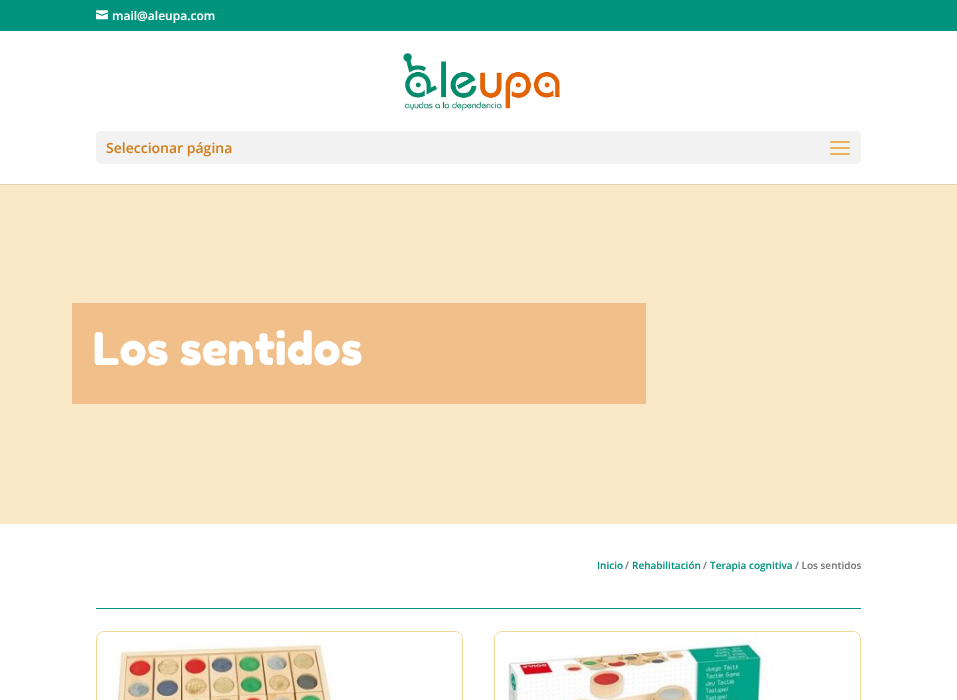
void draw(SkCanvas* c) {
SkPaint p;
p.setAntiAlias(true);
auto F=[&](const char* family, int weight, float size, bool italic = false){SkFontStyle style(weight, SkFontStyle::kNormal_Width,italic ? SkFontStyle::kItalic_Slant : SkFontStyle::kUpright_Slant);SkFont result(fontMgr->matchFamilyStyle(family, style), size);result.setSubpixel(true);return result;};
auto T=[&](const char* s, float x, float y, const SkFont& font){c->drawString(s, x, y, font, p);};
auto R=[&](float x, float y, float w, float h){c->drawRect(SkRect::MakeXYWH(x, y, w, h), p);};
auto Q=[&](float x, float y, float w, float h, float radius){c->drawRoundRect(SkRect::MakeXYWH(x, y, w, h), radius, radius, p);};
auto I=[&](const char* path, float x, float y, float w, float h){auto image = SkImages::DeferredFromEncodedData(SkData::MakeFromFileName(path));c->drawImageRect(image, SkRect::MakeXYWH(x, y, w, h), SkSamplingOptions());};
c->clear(0xffffffff);
p.setColor(0xff00947e);
R(0,0,957,31);
I("1.png",96,10,12,10);
auto f1 = F("Open Sans",600,12);
p.setColor(0xffffffff);
T("mail@aleupa.com",112,20,f1);
p.setColor(0xffdfd1b1);
R(0,184,957,1);
I("2.png",403,53,157,58);
p.setColor(0xfff2f2f2);
Q(96,131,765,33,5);
auto f2 = F("Open Sans",600,14);
p.setColor(0xffd57e1c);
T("Seleccionar página",106,153,f2);
I("3.png",830,141,20,14);
p.setColor(0xfff8e8c5);
R(0,185,957,339);
p.setColor(0xfff1c08a);
R(72,303,574,101);
auto f3 = F("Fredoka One",400,45);
p.setColor(0xffffffff);
T("Los sentidos",93,365,f3);
auto f4 = F("Open Sans",600,10);
p.setColor(0xff00947e);
T("Inicio",597,569,f4);
p.setColor(0xff767676);
T("/",625,569,f4);
p.setColor(0xff00947e);
T("Rehabilitación",632,569,f4);
p.setColor(0xff767676);
T("/",703,569,f4);
p.setColor(0xff00947e);
T("Terapia cognitiva",710,569,f4);
p.setColor(0xff767676);
T("/ Los sentidos",795,569,f4);
p.setColor(0xff00947e);
R(96,608,765,1);
p.setStroke(true);
p.setStrokeWidth(1);
p.setColor(0xfff2d798);
c->drawRoundRect(SkRect::MakeXYWH(96.5,631.5,366,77),7.5,7.5,p);
I("4.png",97,632,365,68);
c->drawRoundRect(SkRect::MakeXYWH(494.5,631.5,366,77),7.5,7.5,p);
I("5.png",495,632,365,68);
}
